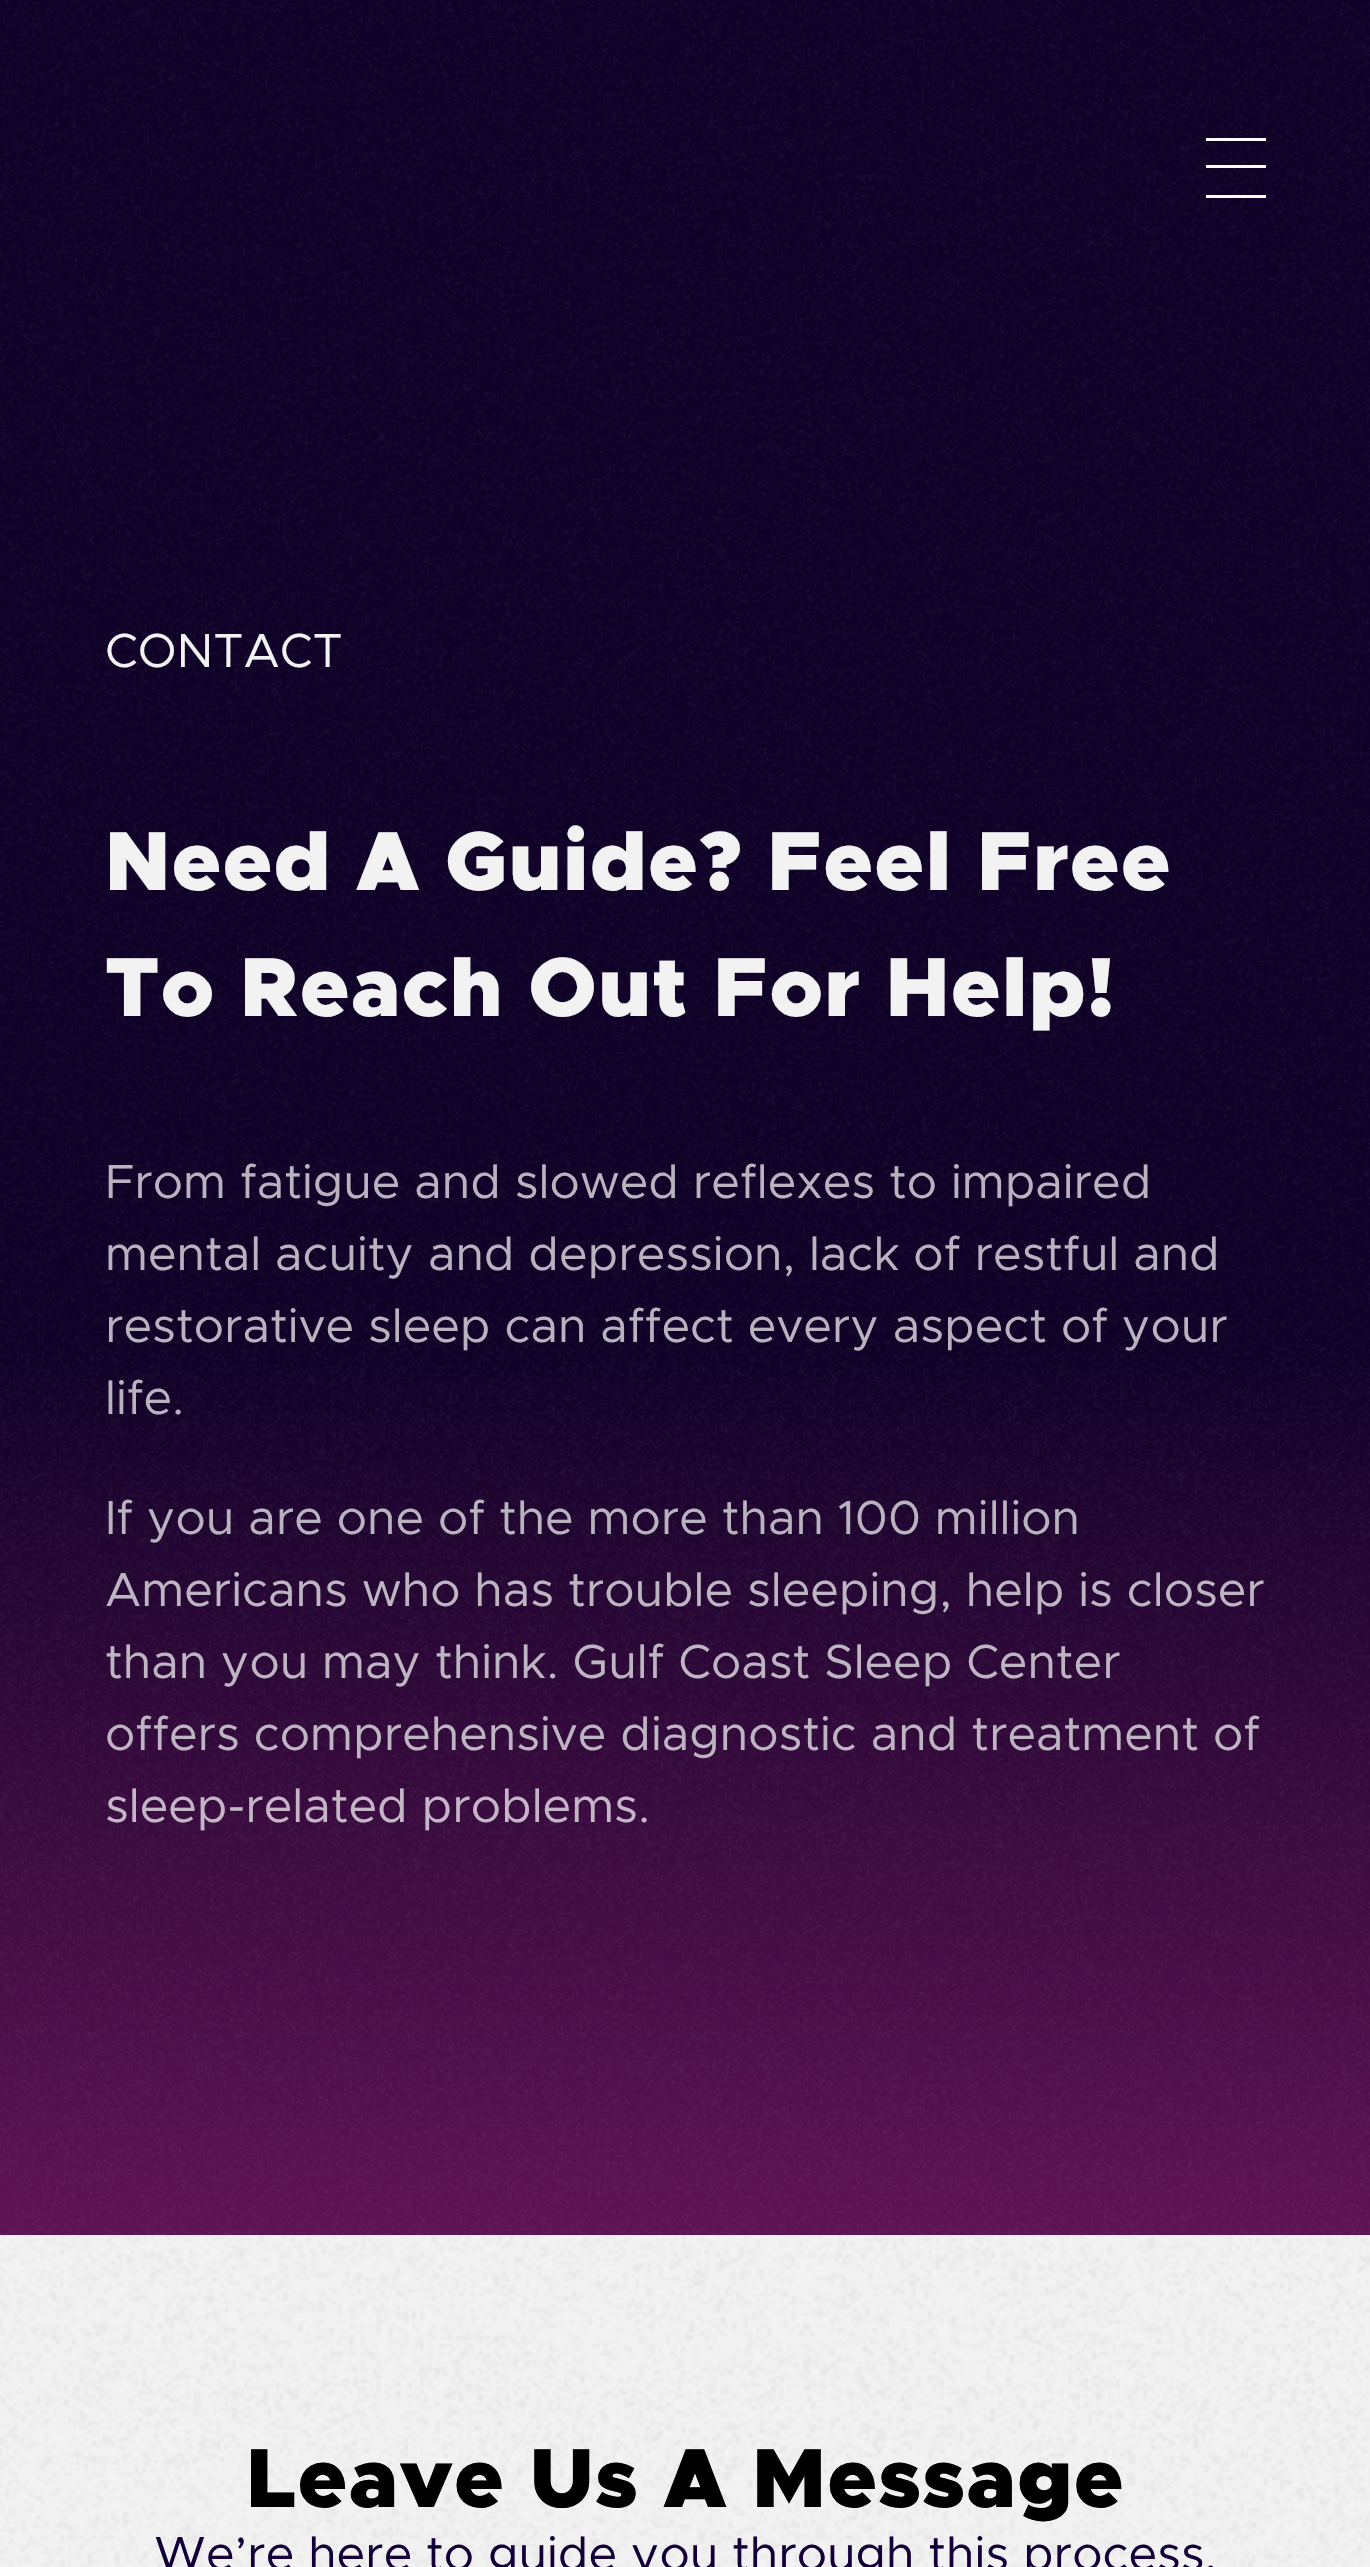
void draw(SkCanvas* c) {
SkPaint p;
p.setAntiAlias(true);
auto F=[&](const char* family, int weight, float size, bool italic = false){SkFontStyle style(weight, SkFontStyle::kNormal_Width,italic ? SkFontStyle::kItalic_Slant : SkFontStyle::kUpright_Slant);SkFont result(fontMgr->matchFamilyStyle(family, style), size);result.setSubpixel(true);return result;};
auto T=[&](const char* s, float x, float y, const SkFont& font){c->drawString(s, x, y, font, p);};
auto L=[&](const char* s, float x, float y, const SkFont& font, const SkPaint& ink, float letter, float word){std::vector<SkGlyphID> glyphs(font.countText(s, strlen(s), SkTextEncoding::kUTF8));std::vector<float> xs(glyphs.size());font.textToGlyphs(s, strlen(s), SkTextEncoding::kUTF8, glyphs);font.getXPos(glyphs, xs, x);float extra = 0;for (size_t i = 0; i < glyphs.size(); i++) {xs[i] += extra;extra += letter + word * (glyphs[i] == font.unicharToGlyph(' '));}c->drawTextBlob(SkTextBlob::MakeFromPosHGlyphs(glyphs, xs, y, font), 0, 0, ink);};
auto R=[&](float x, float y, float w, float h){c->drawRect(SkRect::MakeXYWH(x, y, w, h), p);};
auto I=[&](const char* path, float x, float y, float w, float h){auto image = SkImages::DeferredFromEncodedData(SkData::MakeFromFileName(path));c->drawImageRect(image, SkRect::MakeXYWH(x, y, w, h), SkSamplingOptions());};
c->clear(0xffffffff);
{
const SkColor colors[] = {0xff0e0026,0xff5e1254};
const float stops[] = {.6,1};
const SkPoint ends[] = {{685,0}, {686,2235}};
p.setShader(SkGradientShader::MakeLinear(ends, colors, stops, 2, SkTileMode::kClamp));
p.setAlpha(255);
}
R(0,0,1370,2235);
I("1.png",0,0,1370,2235);
p.setShader(nullptr);
p.setColor(0xffffffff);
R(1206,138,60,3);
R(1206,165,60,3);
R(1206,195,60,3);
auto f1 = F("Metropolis",400,48);
p.setColor(0xfff2f2f2);
T("CONTACT",105,667,f1);
auto f2 = F("Metropolis",900,84);
L("Need A Guide? Feel Free",105,890,f2,p,1.5,0);
L("To Reach Out For Help!",105,1016,f2,p,1.5,0);
p.setColor(0xffb8b3bf);
T("From fatigue and slowed reflexes to impaired",105,1198,f1);
T("mental acuity and depression, lack of restful and",105,1270,f1);
T("restorative sleep can affect every aspect of your",105,1342,f1);
T("life.",105,1414,f1);
T("If you are one of the more than 100 million",105,1534,f1);
p.setColor(0xffbeb5c2);
T("Americans who has trouble sleeping, help is closer",105,1606,f1);
T("than you may think. Gulf Coast Sleep Center",105,1678,f1);
T("offers comprehensive diagnostic and treatment of",105,1750,f1);
p.setColor(0xffc4b6c6);
T("sleep-related problems.",105,1822,f1);
p.setColor(0xfff2f2f2);
R(0,2235,1370,332);
I("2.png",0,2235,1370,332);
p.setColor(0xff000000);
L("Leave Us A Message",246,2507,f2,p,1.5,0);
p.setColor(0xff130038);
T("We’re here to guide you through this process.",154,2570,f1);
}
